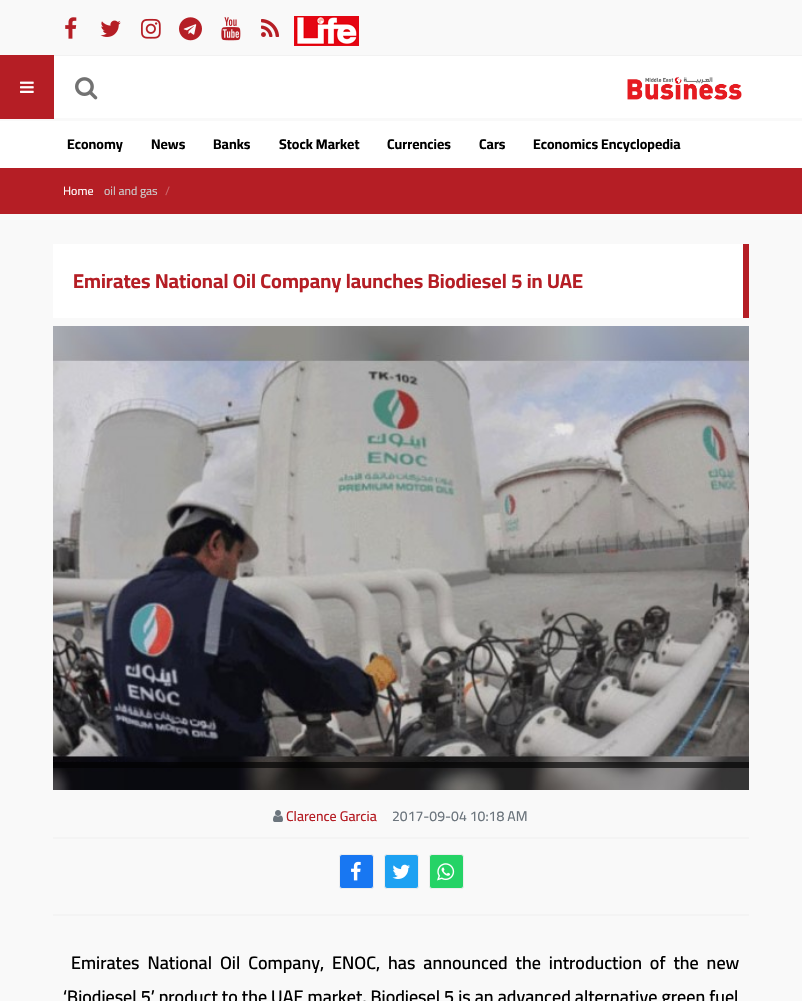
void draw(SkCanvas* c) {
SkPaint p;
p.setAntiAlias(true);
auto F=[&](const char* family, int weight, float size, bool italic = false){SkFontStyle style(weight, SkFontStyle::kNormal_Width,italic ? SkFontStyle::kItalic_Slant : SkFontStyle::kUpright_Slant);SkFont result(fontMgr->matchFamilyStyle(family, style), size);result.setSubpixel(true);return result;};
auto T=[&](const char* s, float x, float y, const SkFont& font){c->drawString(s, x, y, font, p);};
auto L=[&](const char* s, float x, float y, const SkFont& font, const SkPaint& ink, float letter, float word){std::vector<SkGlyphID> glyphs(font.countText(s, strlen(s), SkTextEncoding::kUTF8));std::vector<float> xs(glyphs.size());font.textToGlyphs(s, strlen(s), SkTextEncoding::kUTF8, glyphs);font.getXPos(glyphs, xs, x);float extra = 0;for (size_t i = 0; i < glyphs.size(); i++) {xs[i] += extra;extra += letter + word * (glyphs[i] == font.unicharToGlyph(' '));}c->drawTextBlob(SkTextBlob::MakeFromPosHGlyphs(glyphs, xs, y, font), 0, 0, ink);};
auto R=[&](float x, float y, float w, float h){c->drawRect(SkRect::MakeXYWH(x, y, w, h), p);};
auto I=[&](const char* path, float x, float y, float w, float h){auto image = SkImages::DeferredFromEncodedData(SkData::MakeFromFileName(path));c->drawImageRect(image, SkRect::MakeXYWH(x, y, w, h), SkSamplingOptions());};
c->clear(0xfff9f9f9);
p.setColor(0xfff2f2f2);
R(54,55,748,1);
I("1.png",65,17,12,22);
I("2.png",100,20,21,17);
I("3.png",141,18,20,21);
I("4.png",179,17,23,24);
I("5.png",221,17,20,24);
I("6.png",261,19,19,18);
I("7.png",294,16,65,30);
p.setColor(0xffffffff);
R(54,56,748,62);
p.setColor(0xffb51e25);
R(0,55,54,64);
I("8.png",20,81,14,12);
I("9.png",75,77,23,23);
I("10.png",627,76,115,24);
p.setColor(0xffffffff);
R(0,121,802,47);
auto f1 = F("Cairo",700,14);
p.setColor(0xff000000);
T("Economy",67,149,f1);
T("News",151,149,f1);
T("Banks",213,149,f1);
T("Stock Market",279,149,f1);
T("Currencies",387,149,f1);
T("Cars",479,149,f1);
T("Economics Encyclopedia",533,149,f1);
p.setColor(0xffb51e25);
R(0,168,802,46);
auto f2 = F("Cairo",400,12);
p.setColor(0xffffffff);
T("Home",63,195,f2);
p.setColor(0xffcccccc);
T("oil and gas",104,195,f2);
p.setColor(0xffcd686d);
T("/",165,195,f2);
p.setColor(0xffffffff);
R(53,244,690,74);
p.setColor(0xffb51e25);
R(743,244,6,74);
auto f3 = F("Cairo",700,20);
T("Emirates National Oil Company launches Biodiesel 5 in UAE",73,288,f3);
I("11.png",53,326,696,464);
p.setColor(0xa8000000);
R(53,762,696,6);
p.setColor(0xfff4f4f4);
R(53,837,696,2);
I("12.png",273,810,10,12);
auto f4 = F("Cairo",500,14);
p.setColor(0xffb51e25);
T("Clarence Garcia",286,821,f4);
p.setColor(0xff6c757d);
T("2017-09-04 10:18 AM",392,821,f4);
p.setColor(0xfff4f4f4);
R(53,914,696,2);
p.setColor(0xff1877f2);
c->drawRoundRect(SkRect::MakeXYWH(339.5,854.5,34,34),2.5,2.5,p);
p.setStroke(true);
p.setStrokeWidth(1);
p.setColor(0xffeeeeee);
c->drawRoundRect(SkRect::MakeXYWH(339.5,854.5,34,34),2.5,2.5,p);
I("13.png",351,861,10,20);
p.setStroke(false);
p.setColor(0xff1da1f2);
c->drawRoundRect(SkRect::MakeXYWH(384.5,854.5,34,34),2.5,2.5,p);
p.setStroke(true);
p.setColor(0xffeeeeee);
c->drawRoundRect(SkRect::MakeXYWH(384.5,854.5,34,34),2.5,2.5,p);
I("14.png",392,864,18,15);
p.setStroke(false);
p.setColor(0xff25d366);
c->drawRoundRect(SkRect::MakeXYWH(429.5,854.5,34,34),2.5,2.5,p);
p.setStroke(true);
p.setColor(0xffeeeeee);
c->drawRoundRect(SkRect::MakeXYWH(429.5,854.5,34,34),2.5,2.5,p);
I("15.png",437,863,18,18);
auto f5 = F("Cairo",600,18);
p.setStroke(false);
p.setColor(0xff000000);
L("Emirates National Oil Company, ENOC, has announced the introduction of the new",71,969,f5,p,0,4);
L("‘Biodiesel 5’ product to the UAE market. Biodiesel 5 is an advanced alternative green fuel",63,1003,f5,p,0,.1);
}
